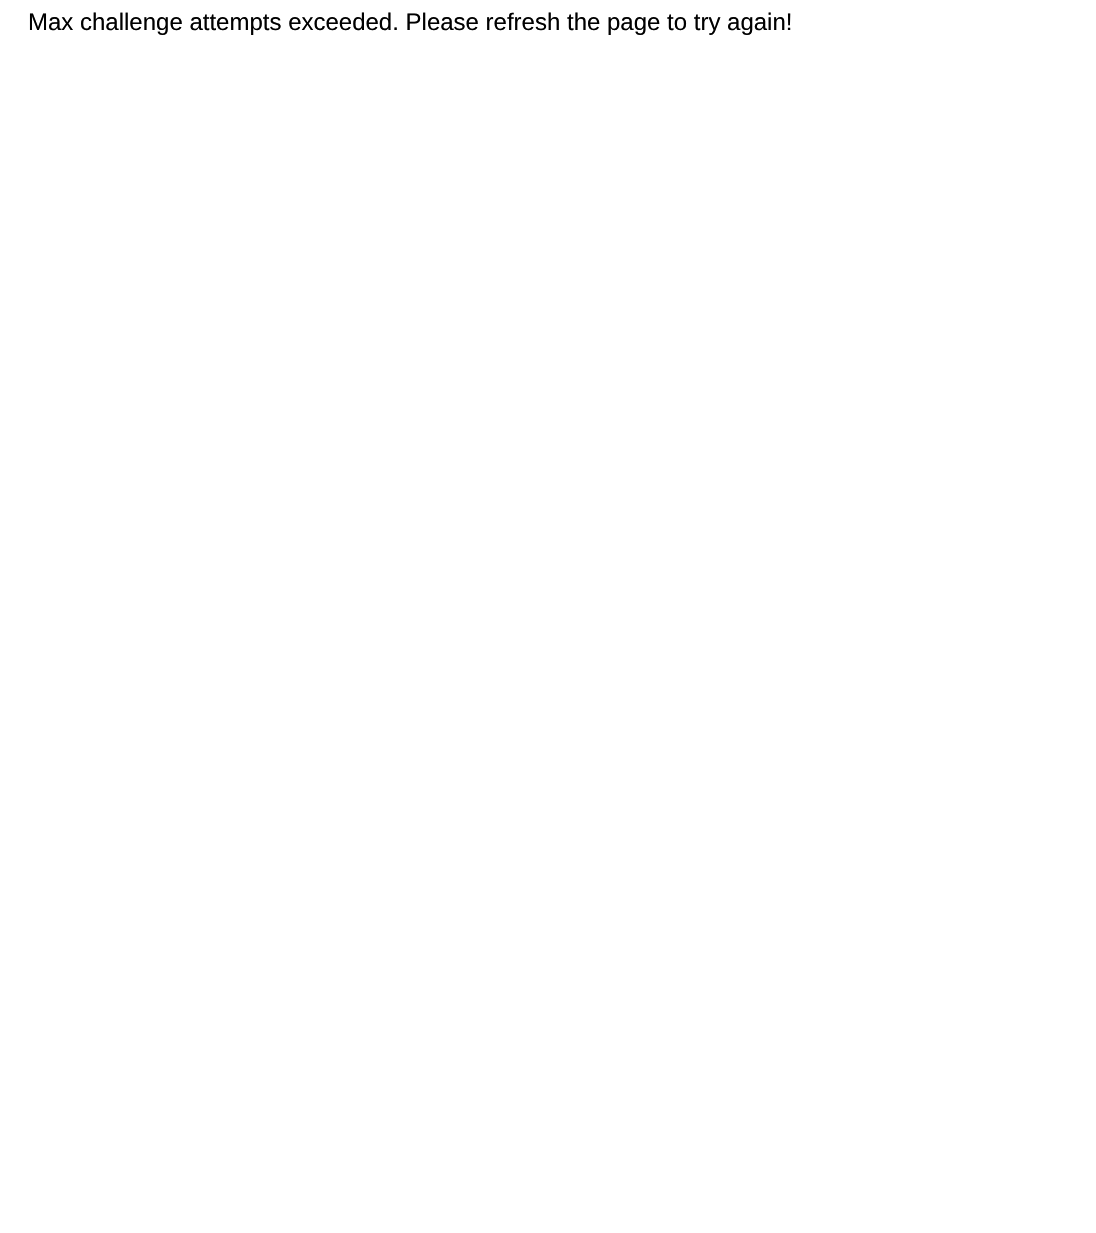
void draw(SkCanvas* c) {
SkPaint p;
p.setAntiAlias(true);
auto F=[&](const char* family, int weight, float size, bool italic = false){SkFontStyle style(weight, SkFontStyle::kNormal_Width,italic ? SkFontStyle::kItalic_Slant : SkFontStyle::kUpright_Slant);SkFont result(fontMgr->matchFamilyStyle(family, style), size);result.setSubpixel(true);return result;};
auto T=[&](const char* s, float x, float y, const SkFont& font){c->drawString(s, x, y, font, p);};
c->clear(0xffffffff);
auto f1 = F("Liberation Sans",400,24);
p.setColor(0xff000000);
T("Max challenge attempts exceeded. Please refresh the page to try again!",28,30,f1);
}
